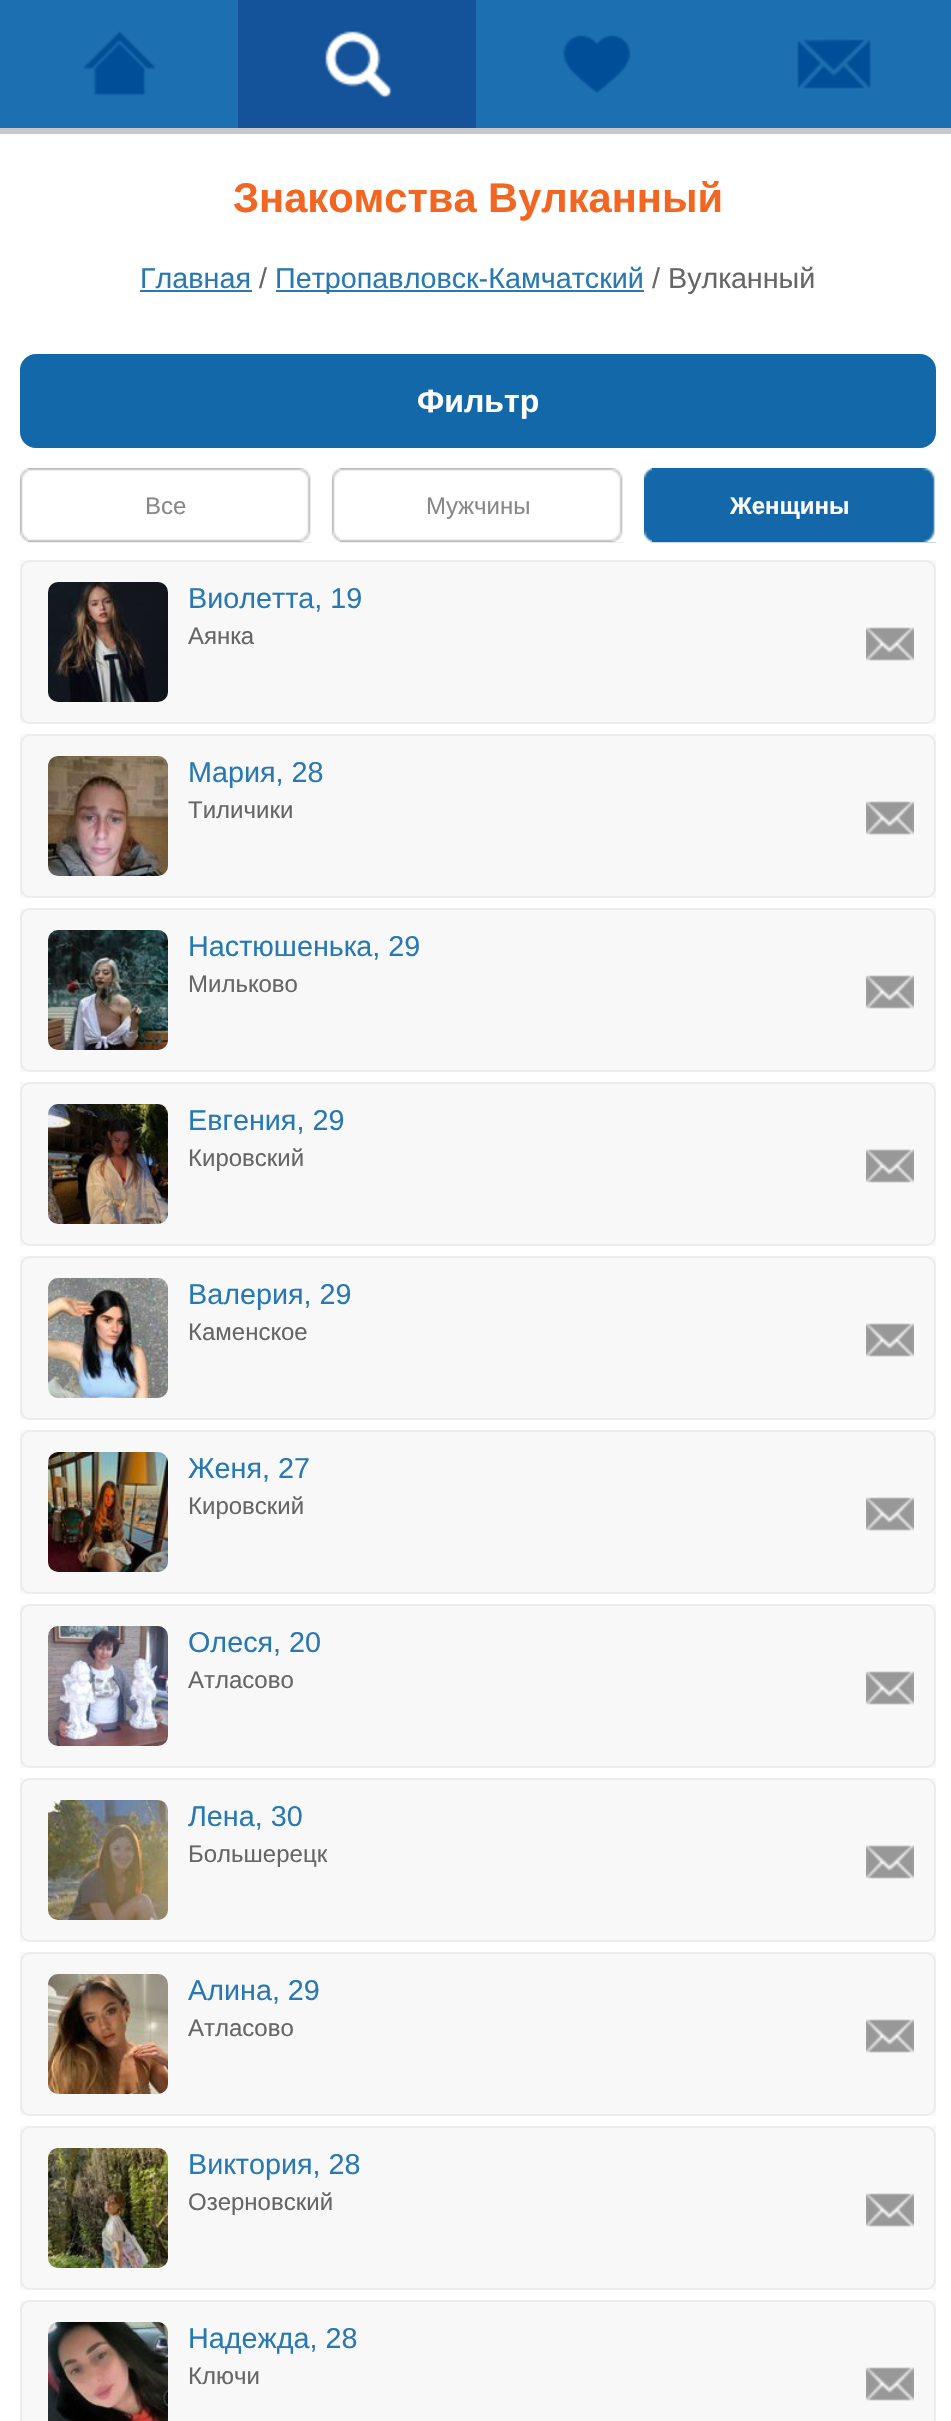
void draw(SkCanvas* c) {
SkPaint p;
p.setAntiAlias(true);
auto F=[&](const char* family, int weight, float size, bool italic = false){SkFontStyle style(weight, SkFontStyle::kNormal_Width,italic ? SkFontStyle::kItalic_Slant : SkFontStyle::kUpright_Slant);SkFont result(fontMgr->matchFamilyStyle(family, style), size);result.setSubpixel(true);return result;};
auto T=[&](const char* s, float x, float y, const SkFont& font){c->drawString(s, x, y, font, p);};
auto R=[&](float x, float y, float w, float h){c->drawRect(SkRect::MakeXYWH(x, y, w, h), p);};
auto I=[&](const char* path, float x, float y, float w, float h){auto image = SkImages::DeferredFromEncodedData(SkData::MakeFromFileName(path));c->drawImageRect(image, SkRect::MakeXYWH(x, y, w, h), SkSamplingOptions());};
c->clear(0xff1c70b1);
p.setColor(0xffc8c8c8);
R(0,128,951,6);
I("1.png",83,31,73,65);
p.setColor(0xff14539a);
R(238,0,238,128);
I("2.png",325,31,67,67);
I("3.png",563,35,68,58);
I("4.png",797,39,74,50);
p.setColor(0xffffffff);
R(0,134,951,2287);
auto f1 = F("Liberation Sans",700,41.6);
p.setColor(0xfff26622);
T("Знакомства Вулканный",233,212,f1);
auto f2 = F("Liberation Sans",400,28.75);
p.setColor(0xff2878b4);
T("Главная",140,288,f2);
R(140,290,112,2);
p.setColor(0xff666666);
T("/",259,288,f2);
p.setColor(0xff2878b4);
R(276,290,368,2);
T("Петропавловск-Камчатский",275,288,f2);
p.setColor(0xff666666);
T("/ Вулканный",652,288,f2);
p.setColor(0xff1268a9);
c->drawRoundRect(SkRect::MakeXYWH(21,355,914,92),15,15,p);
p.setStroke(true);
p.setStrokeWidth(2);
c->drawRoundRect(SkRect::MakeXYWH(21,355,914,92),15,15,p);
auto f3 = F("Liberation Sans",700,32);
p.setStroke(false);
p.setColor(0xffffffff);
T("Фильтр",417,412,f3);
I("5.png",20,468,292,75);
R(297,468,15,74);
I("6.png",28,468,283,74);
auto f4 = F("Liberation Sans",400,24);
p.setColor(0xff888888);
T("Все",145,514,f4);
I("5.png",332,468,292,75);
p.setColor(0xffffffff);
R(609,468,15,74);
I("6.png",340,468,283,74);
p.setColor(0xff888888);
T("Мужчины",426,514,f4);
I("7.png",644,468,292,75);
p.setColor(0xffffffff);
R(921,468,15,74);
I("8.png",652,468,283,74);
auto f5 = F("Liberation Sans",700,24);
T("Женщины",730,514,f5);
p.setColor(0xfff8f8f8);
R(20,560,916,164);
p.setStroke(true);
p.setColor(0xffececec);
c->drawRoundRect(SkRect::MakeXYWH(21,561,914,162),9,9,p);
I("9.png",48,582,120,120);
p.setStroke(false);
p.setColor(0xff2878b4);
T("Виолетта, 19",188,608,f2);
p.setColor(0xff666666);
T("Аянка",188,644,f4);
I("10.png",866,627,48,34);
p.setColor(0xfff8f8f8);
R(20,734,916,164);
p.setStroke(true);
p.setColor(0xffececec);
c->drawRoundRect(SkRect::MakeXYWH(21,735,914,162),9,9,p);
I("11.png",48,756,120,120);
p.setStroke(false);
p.setColor(0xff2878b4);
T("Мария, 28",188,782,f2);
p.setColor(0xff666666);
T("Тиличики",188,818,f4);
I("10.png",866,801,48,34);
p.setColor(0xfff8f8f8);
R(20,908,916,164);
p.setStroke(true);
p.setColor(0xffececec);
c->drawRoundRect(SkRect::MakeXYWH(21,909,914,162),9,9,p);
I("12.png",48,930,120,120);
p.setStroke(false);
p.setColor(0xff2878b4);
T("Настюшенька, 29",188,956,f2);
p.setColor(0xff666666);
T("Мильково",188,992,f4);
I("10.png",866,975,48,34);
p.setColor(0xfff8f8f8);
R(20,1082,916,164);
p.setStroke(true);
p.setColor(0xffececec);
c->drawRoundRect(SkRect::MakeXYWH(21,1083,914,162),9,9,p);
I("13.png",48,1104,120,120);
p.setStroke(false);
p.setColor(0xff2878b4);
T("Евгения, 29",188,1130,f2);
p.setColor(0xff666666);
T("Кировский",188,1166,f4);
I("10.png",866,1149,48,34);
p.setColor(0xfff8f8f8);
R(20,1256,916,164);
p.setStroke(true);
p.setColor(0xffececec);
c->drawRoundRect(SkRect::MakeXYWH(21,1257,914,162),9,9,p);
I("14.png",48,1278,120,120);
p.setStroke(false);
p.setColor(0xff2878b4);
T("Валерия, 29",188,1304,f2);
p.setColor(0xff666666);
T("Каменское",188,1340,f4);
I("10.png",866,1323,48,34);
p.setColor(0xfff8f8f8);
R(20,1430,916,164);
p.setStroke(true);
p.setColor(0xffececec);
c->drawRoundRect(SkRect::MakeXYWH(21,1431,914,162),9,9,p);
I("15.png",48,1452,120,120);
p.setStroke(false);
p.setColor(0xff2878b4);
T("Женя, 27",188,1478,f2);
p.setColor(0xff666666);
T("Кировский",188,1514,f4);
I("10.png",866,1497,48,34);
p.setColor(0xfff8f8f8);
R(20,1604,916,164);
p.setStroke(true);
p.setColor(0xffececec);
c->drawRoundRect(SkRect::MakeXYWH(21,1605,914,162),9,9,p);
I("16.png",48,1626,120,120);
p.setStroke(false);
p.setColor(0xff2878b4);
T("Олеся, 20",188,1652,f2);
p.setColor(0xff666666);
T("Атласово",188,1688,f4);
I("10.png",866,1671,48,34);
p.setColor(0xfff8f8f8);
R(20,1778,916,164);
p.setStroke(true);
p.setColor(0xffececec);
c->drawRoundRect(SkRect::MakeXYWH(21,1779,914,162),9,9,p);
I("17.png",48,1800,120,120);
p.setStroke(false);
p.setColor(0xff2878b4);
T("Лена, 30",188,1826,f2);
p.setColor(0xff666666);
T("Большерецк",188,1862,f4);
I("10.png",866,1845,48,34);
p.setColor(0xfff8f8f8);
R(20,1952,916,164);
p.setStroke(true);
p.setColor(0xffececec);
c->drawRoundRect(SkRect::MakeXYWH(21,1953,914,162),9,9,p);
I("18.png",48,1974,120,120);
p.setStroke(false);
p.setColor(0xff2878b4);
T("Алина, 29",188,2000,f2);
p.setColor(0xff666666);
T("Атласово",188,2036,f4);
I("10.png",866,2019,48,34);
p.setColor(0xfff8f8f8);
R(20,2126,916,164);
p.setStroke(true);
p.setColor(0xffececec);
c->drawRoundRect(SkRect::MakeXYWH(21,2127,914,162),9,9,p);
I("19.png",48,2148,120,120);
p.setStroke(false);
p.setColor(0xff2878b4);
T("Виктория, 28",188,2174,f2);
p.setColor(0xff666666);
T("Озерновский",188,2210,f4);
I("10.png",866,2193,48,34);
p.setColor(0xfff8f8f8);
R(20,2300,916,121);
p.setStroke(true);
p.setColor(0xffececec);
c->drawRoundRect(SkRect::MakeXYWH(21,2301,914,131),9,9,p);
I("20.png",48,2322,120,99);
p.setStroke(false);
p.setColor(0xff2878b4);
T("Надежда, 28",188,2348,f2);
p.setColor(0xff666666);
T("Ключи",188,2384,f4);
I("10.png",866,2367,48,34);
}
